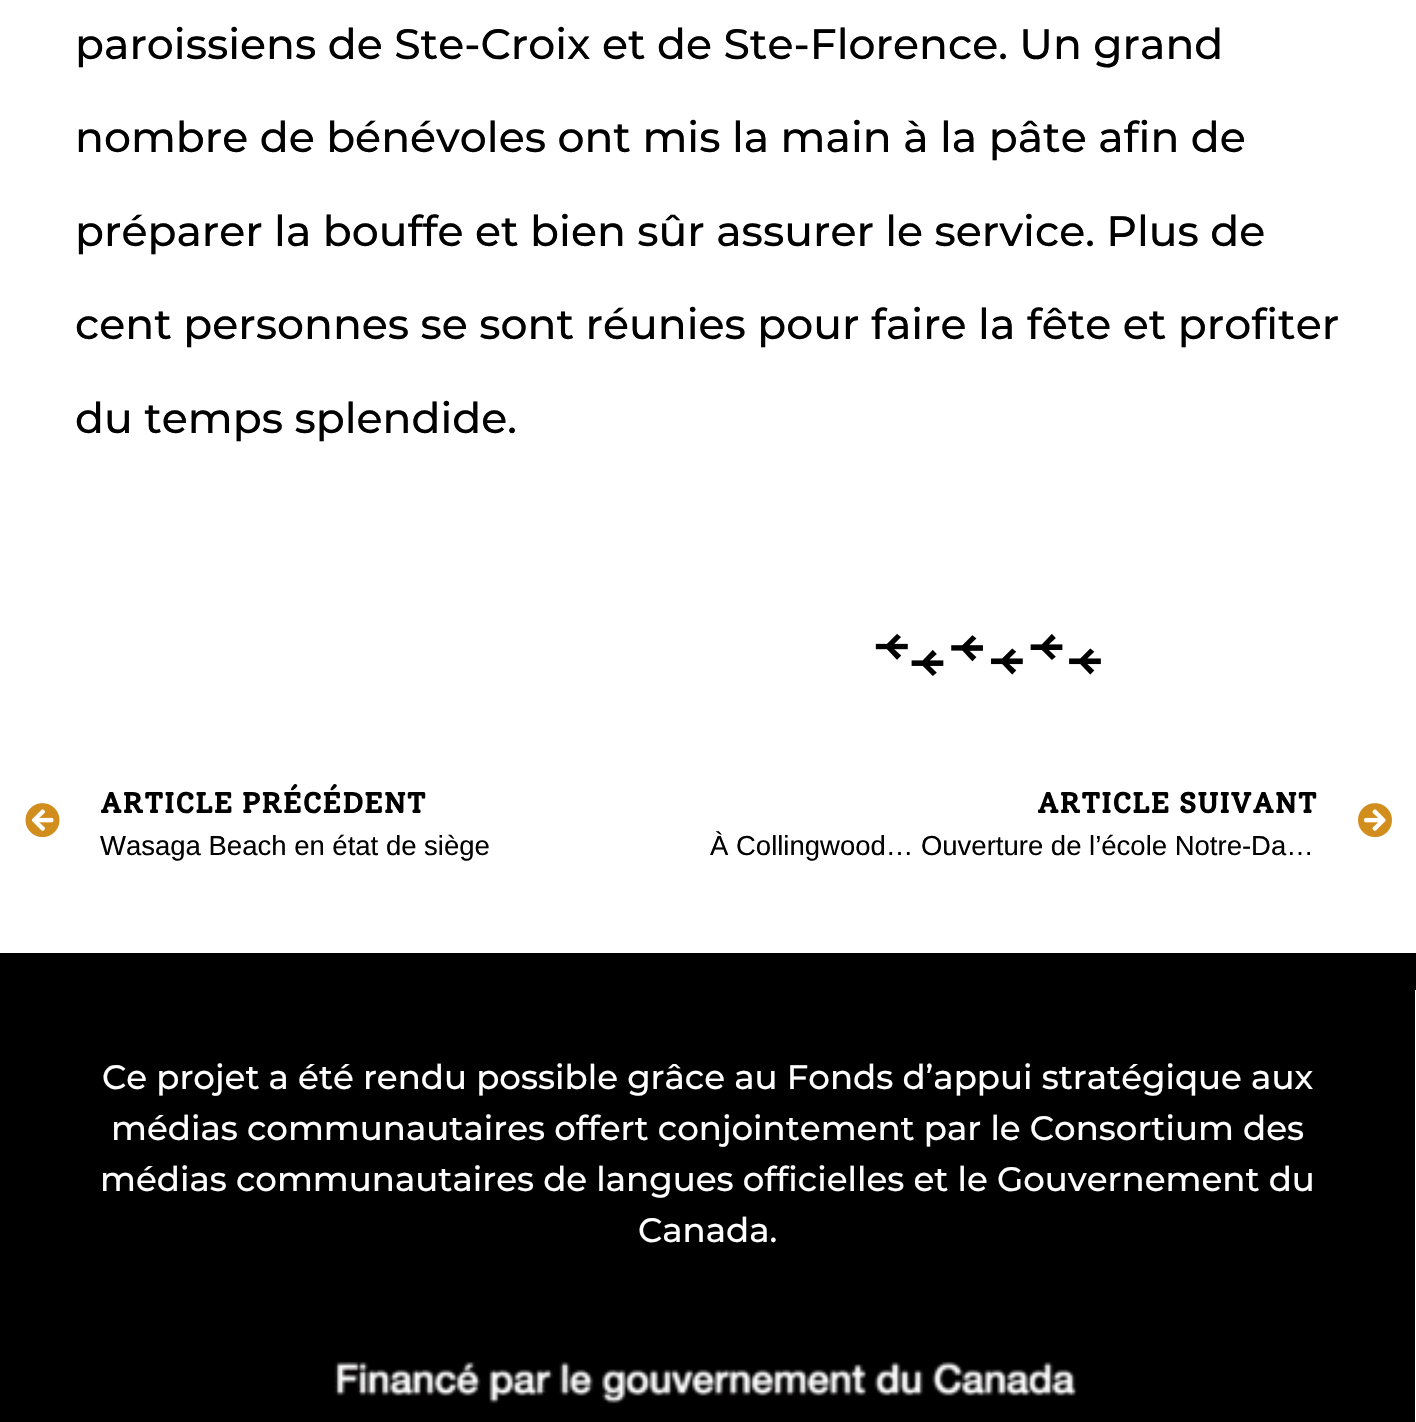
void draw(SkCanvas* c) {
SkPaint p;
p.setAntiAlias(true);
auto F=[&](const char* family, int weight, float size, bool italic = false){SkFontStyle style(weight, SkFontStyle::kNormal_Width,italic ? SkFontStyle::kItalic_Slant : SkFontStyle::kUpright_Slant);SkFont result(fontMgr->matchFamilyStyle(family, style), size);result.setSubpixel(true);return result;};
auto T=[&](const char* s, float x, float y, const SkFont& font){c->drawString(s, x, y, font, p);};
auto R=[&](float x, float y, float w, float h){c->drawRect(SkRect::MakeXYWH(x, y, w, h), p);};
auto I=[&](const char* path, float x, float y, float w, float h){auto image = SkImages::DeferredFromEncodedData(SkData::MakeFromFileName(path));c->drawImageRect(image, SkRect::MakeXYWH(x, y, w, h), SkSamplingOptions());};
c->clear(0xffffffff);
auto f1 = F("Montserrat",500,42.5);
p.setColor(0xff000000);
T("paroissiens de Ste-Croix et de Ste-Florence. Un grand",75,59,f1);
T("nombre de bénévoles ont mis la main à la pâte afin de",75,152,f1);
T("préparer la bouffe et bien sûr assurer le service. Plus de",75,246,f1);
T("cent personnes se sont réunies pour faire la fête et profiter",75,339,f1);
T("du temps splendide.",75,433,f1);
I("1.png",875,633,226,43);
I("2.png",25,803,35,35);
auto f2 = F("Solway",700,30);
T("ARTICLE PRÉCÉDENT",100,813,f2);
auto f3 = F("Liberation Sans",400,27.5);
T("Wasaga Beach en état de siège",100,855,f3);
T("ARTICLE SUIVANT",1037,813,f2);
T("À Collingwood… Ouverture de l’école Notre-Da…",710,855,f3);
I("3.png",1358,803,34,35);
R(0,953,1416,469);
p.setColor(0xffffffff);
R(1415,990,1,432);
auto f4 = F("Montserrat",500,34);
T("Ce projet a été rendu possible grâce au Fonds d’appui stratégique aux",102,1089,f4);
T("médias communautaires offert conjointement par le Consortium des",111,1140,f4);
T("médias communautaires de langues officielles et le Gouvernement du",100,1191,f4);
T("Canada.",638,1242,f4);
I("4.png",334,1361,744,43);
}
